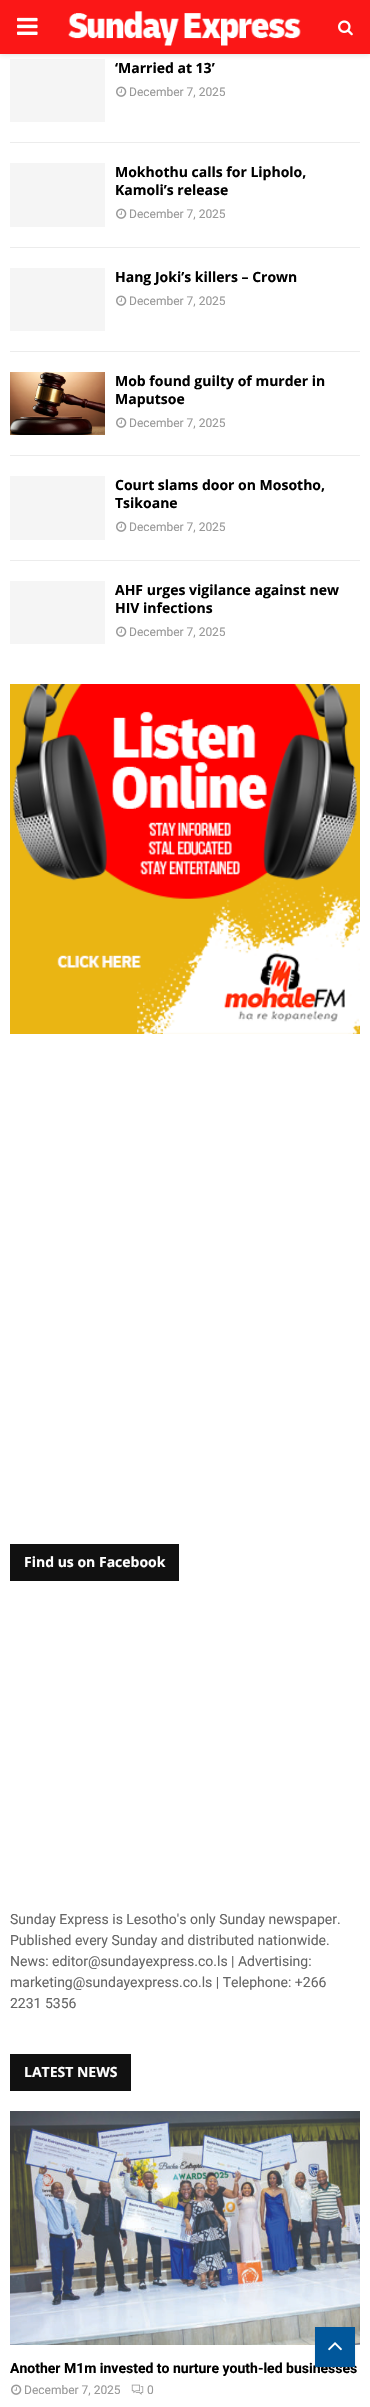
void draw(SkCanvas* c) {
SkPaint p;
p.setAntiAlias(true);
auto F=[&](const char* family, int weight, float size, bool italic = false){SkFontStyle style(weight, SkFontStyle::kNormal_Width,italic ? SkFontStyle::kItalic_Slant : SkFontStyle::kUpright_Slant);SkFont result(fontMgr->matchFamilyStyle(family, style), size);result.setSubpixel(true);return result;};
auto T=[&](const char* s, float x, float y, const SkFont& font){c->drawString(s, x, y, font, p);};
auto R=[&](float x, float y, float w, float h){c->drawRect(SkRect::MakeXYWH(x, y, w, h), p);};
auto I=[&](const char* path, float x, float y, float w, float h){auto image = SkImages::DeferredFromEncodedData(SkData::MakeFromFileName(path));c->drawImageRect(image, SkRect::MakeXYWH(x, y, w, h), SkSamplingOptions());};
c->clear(0xffffffff);
p.setColor(0xfff5f5f5);
R(10,59,95,63);
p.setColor(0x75bebebe);
p.setMaskFilter(SkMaskFilter::MakeBlur(kNormal_SkBlurStyle, 2.5));
c->drawRect(SkRect::MakeXYWH(0,1,370,54),p);
p.setMaskFilter(nullptr);
p.setColor(0xfffb1717);
R(0,0,370,54);
I("1.png",17,17,21,18);
I("2.png",68,11,233,35);
I("3.png",338,20,15,16);
p.setColor(0xffececec);
R(10,142,350,1);
auto f1 = F("Open Sans",700,14);
p.setColor(0xff000000);
T("‘Married at 13’",115,73,f1);
I("4.png",116,86,11,11);
auto f2 = F("Roboto",400,12);
p.setColor(0xff999999);
T("December 7, 2025",129,96,f2);
p.setColor(0xffececec);
R(10,247,350,1);
p.setColor(0xfff5f5f5);
R(10,163,95,64);
p.setColor(0xff000000);
T("Mokhothu calls for Lipholo,",115,177,f1);
T("Kamoli’s release",115,195,f1);
I("4.png",116,208,11,11);
p.setColor(0xff999999);
T("December 7, 2025",129,218,f2);
p.setColor(0xffececec);
R(10,351,350,1);
p.setColor(0xfff5f5f5);
R(10,268,95,63);
p.setColor(0xff000000);
T("Hang Joki’s killers – Crown",115,282,f1);
I("4.png",116,295,11,11);
p.setColor(0xff999999);
T("December 7, 2025",129,305,f2);
p.setColor(0xffececec);
R(10,455,350,1);
I("5.png",10,372,95,63);
p.setColor(0xff000000);
T("Mob found guilty of murder in",115,386,f1);
T("Maputsoe",115,404,f1);
I("4.png",116,417,11,11);
p.setColor(0xff999999);
T("December 7, 2025",129,427,f2);
p.setColor(0xffececec);
R(10,560,350,1);
p.setColor(0xfff5f5f5);
R(10,476,95,64);
p.setColor(0xff000000);
T("Court slams door on Mosotho,",115,490,f1);
T("Tsikoane",115,508,f1);
I("4.png",116,521,11,11);
p.setColor(0xff999999);
T("December 7, 2025",129,531,f2);
p.setColor(0xfff5f5f5);
R(10,581,95,63);
p.setColor(0xff000000);
T("AHF urges vigilance against new",115,595,f1);
T("HIV infections",115,613,f1);
I("4.png",116,626,11,11);
p.setColor(0xff999999);
T("December 7, 2025",129,636,f2);
I("6.png",10,684,350,350);
p.setColor(0xff111111);
R(10,1544,169,37);
p.setColor(0xffffffff);
T("Find us on Facebook",24,1567,f1);
auto f3 = F("Roboto",400,14);
p.setColor(0xff666666);
T("Sunday Express is Lesotho's only Sunday newspaper.",10,1924,f3);
T("Published every Sunday and distributed nationwide.",10,1945,f3);
T("News: editor@sundayexpress.co.ls | Advertising:",10,1966,f3);
T("marketing@sundayexpress.co.ls | Telephone: +266",10,1987,f3);
T("2231 5356",10,2008,f3);
p.setColor(0xff111111);
R(10,2054,121,37);
p.setColor(0xffffffff);
T("LATEST NEWS",24,2077,f1);
I("7.png",10,2111,350,234);
auto f4 = F("Roboto",700,14);
p.setColor(0xff000000);
T("Another M1m invested to nurture youth-led businesses",10,2373,f4);
I("4.png",11,2384,11,11);
p.setColor(0xff999999);
T("December 7, 2025",24,2394,f2);
I("8.png",131,2384,13,11);
T("0",147,2394,f2);
p.setColor(0x1a000000);
p.setMaskFilter(SkMaskFilter::MakeBlur(kNormal_SkBlurStyle, 1));
c->drawRect(SkRect::MakeXYWH(315,2328,40,40),p);
p.setMaskFilter(nullptr);
p.setColor(0xff01579b);
R(315,2327,40,40);
I("9.png",328,2342,14,9);
}
